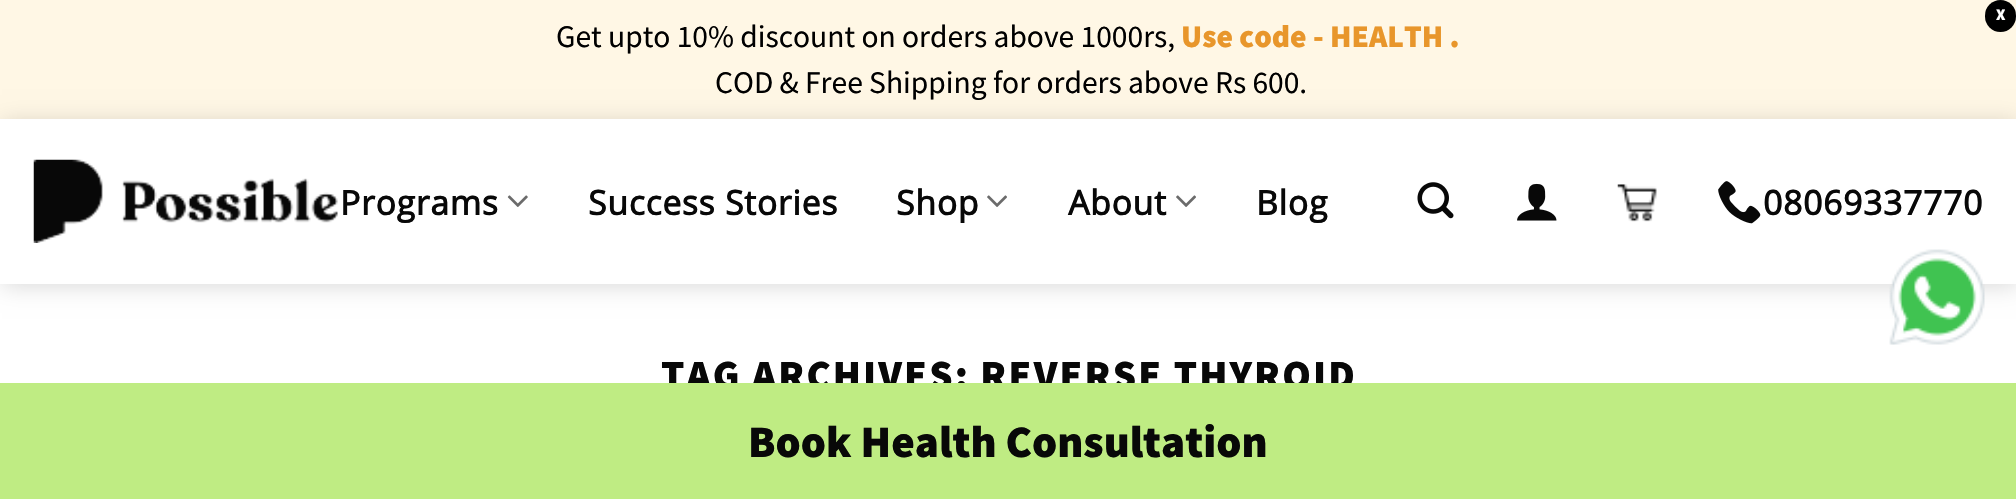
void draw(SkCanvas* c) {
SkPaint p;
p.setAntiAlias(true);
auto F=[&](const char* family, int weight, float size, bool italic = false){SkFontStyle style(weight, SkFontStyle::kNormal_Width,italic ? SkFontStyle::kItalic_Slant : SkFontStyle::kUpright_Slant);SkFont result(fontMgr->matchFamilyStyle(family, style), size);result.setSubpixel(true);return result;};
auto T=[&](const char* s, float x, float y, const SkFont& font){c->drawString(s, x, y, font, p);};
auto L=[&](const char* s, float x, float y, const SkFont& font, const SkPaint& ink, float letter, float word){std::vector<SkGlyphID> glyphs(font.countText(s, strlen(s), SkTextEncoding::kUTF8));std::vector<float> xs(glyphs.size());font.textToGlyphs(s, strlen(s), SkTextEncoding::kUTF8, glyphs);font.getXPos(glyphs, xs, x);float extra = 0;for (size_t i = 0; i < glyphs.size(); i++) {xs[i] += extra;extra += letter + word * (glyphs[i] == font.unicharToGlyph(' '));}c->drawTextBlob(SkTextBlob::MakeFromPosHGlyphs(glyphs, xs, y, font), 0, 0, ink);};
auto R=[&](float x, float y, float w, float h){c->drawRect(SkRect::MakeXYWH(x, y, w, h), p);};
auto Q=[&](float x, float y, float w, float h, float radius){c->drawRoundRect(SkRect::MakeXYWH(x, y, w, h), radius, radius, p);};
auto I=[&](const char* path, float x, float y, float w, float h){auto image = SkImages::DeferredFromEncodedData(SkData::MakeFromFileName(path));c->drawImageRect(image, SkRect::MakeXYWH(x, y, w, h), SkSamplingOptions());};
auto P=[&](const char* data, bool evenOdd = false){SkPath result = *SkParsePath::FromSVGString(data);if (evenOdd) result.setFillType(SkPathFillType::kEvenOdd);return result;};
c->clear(0xffffffff);
p.setColor(0xfffff7e5);
R(0,0,2016,119);
p.setColor(0xff000000);
Q(1985,0,31,32,15.5);
auto f1 = F("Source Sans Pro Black",900,16);
p.setColor(0xffffffff);
T("X",1996,20,f1);
auto f2 = F("Source Sans Pro",400,31.5);
p.setColor(0xff000000);
T("Get upto 10% discount on orders above 1000rs,",556,47,f2);
auto f3 = F("Source Sans Pro Black",900,31.5);
p.setColor(0xffe8962b);
T("Use code - HEALTH .",1181,47,f3);
p.setColor(0xff000000);
T("COD & Free Shipping for orders above Rs 600.",715,93,f2);
c->save();
c->clipPath(P("M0 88h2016v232h-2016zm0 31h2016v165h-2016z",true),true);
p.setColor(0x26000000);
p.setMaskFilter(SkMaskFilter::MakeBlur(kNormal_SkBlurStyle, 11));
c->drawRect(SkRect::MakeXYWH(2,122,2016,164),p);
p.setMaskFilter(nullptr);
c->restore();
p.setColor(0xe6ffffff);
R(0,119,2016,165);
I("1.png",33,159,305,84);
auto f4 = F("Open Sans",700,33.75);
p.setColor(0xff080808);
L("Programs",340,215,f4,p,.7,0);
I("2.png",507,195,21,12);
L("Success Stories",588,215,f4,p,.7,0);
L("Shop",896,215,f4,p,.7,0);
I("3.png",987,195,20,12);
L("About",1068,215,f4,p,.7,0);
I("3.png",1176,195,20,12);
L("Blog",1256,215,f4,p,.7,0);
I("4.png",1417,182,37,37);
I("5.png",1517,183,40,38);
I("6.png",1617,184,40,38);
I("7.png",1718,181,43,43);
L("08069337770",1763,215,f4,p,.7,0);
I("8.png",1889,249,96,96);
auto f5 = F("Source Sans Pro Black",900,41.4);
L("TAG ARCHIVES: REVERSE THYROID",661,389,f5,p,2.1,0);
p.setColor(0xffbfec83);
R(0,383,2016,116);
auto f6 = F("Source Sans Pro Black",900,45);
p.setColor(0xff080808);
T("Book Health Consultation",748,457,f6);
}
